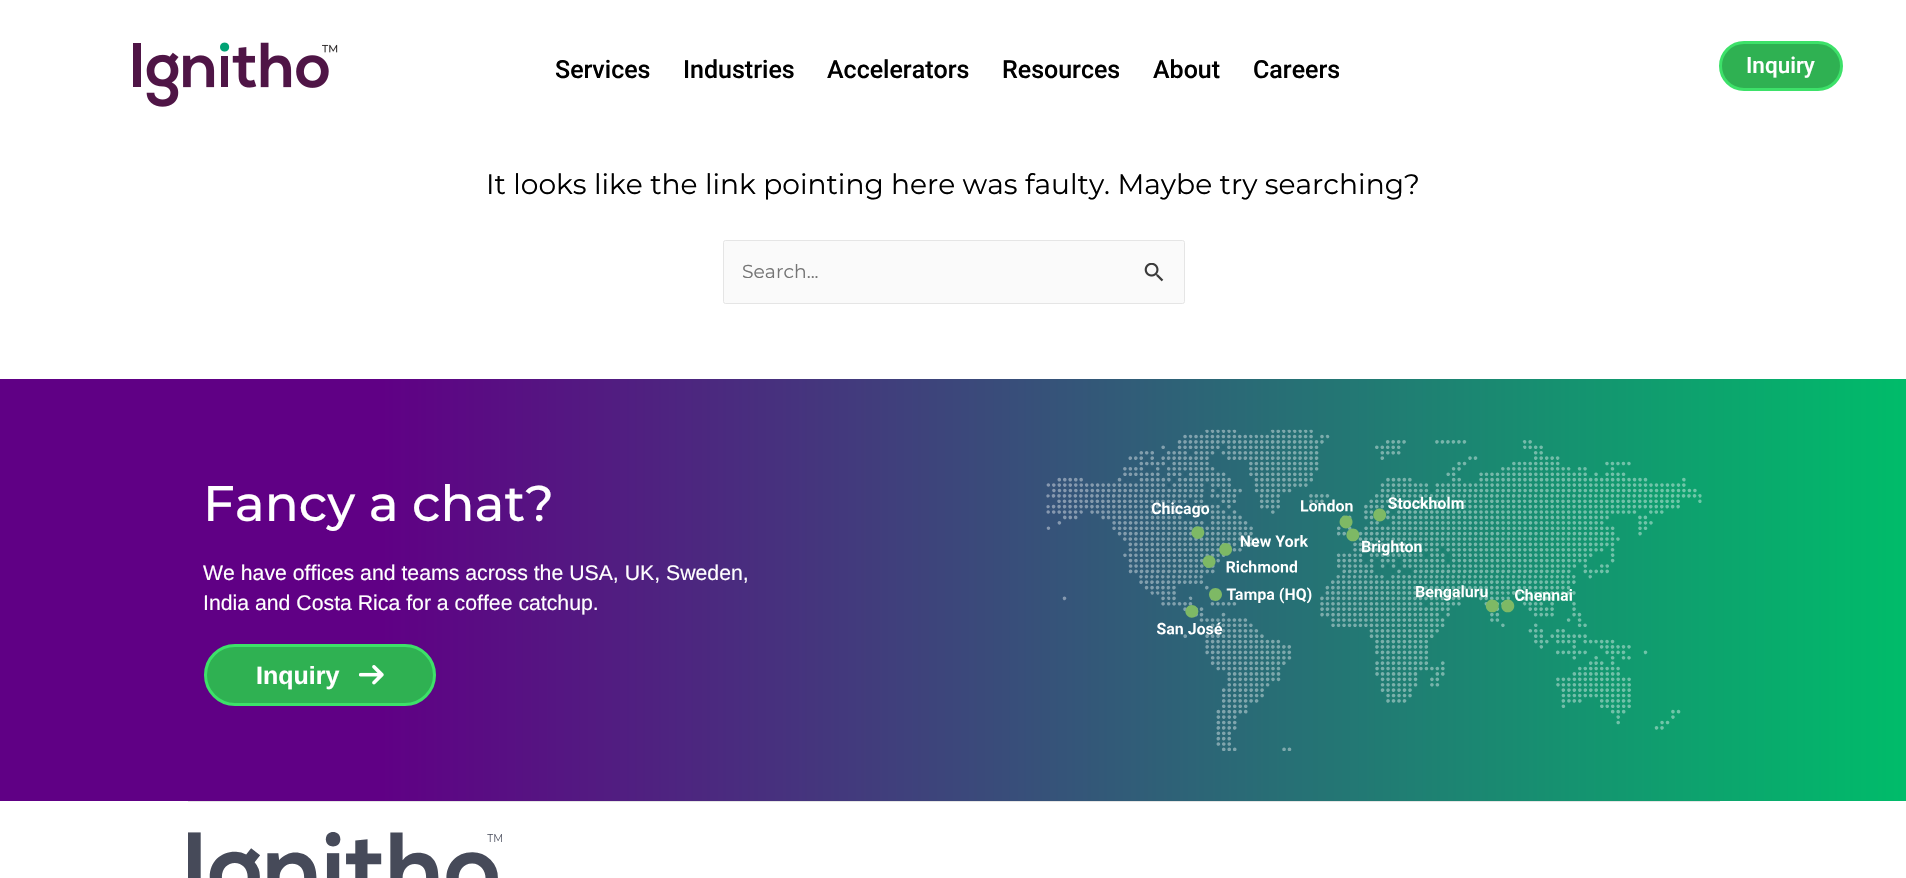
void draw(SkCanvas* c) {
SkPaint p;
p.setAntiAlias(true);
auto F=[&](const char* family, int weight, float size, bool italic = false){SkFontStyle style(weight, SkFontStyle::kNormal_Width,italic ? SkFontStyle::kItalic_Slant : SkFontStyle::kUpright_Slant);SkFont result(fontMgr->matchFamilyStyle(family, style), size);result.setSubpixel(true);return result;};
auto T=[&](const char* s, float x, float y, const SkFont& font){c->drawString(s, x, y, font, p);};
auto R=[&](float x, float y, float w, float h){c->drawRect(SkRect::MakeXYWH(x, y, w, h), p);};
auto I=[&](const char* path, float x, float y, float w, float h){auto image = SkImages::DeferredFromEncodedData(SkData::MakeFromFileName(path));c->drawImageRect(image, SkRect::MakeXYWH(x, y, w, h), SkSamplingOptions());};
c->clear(0xffffffff);
I("1.png",133,42,205,65);
auto f1 = F("Roboto",500,25);
p.setColor(0xff000000);
T("Services",555,78,f1);
T("Industries",683,78,f1);
T("Accelerators",827,78,f1);
T("Resources",1002,78,f1);
T("About",1153,78,f1);
T("Careers",1253,78,f1);
p.setColor(0xff2fb152);
c->drawRoundRect(SkRect::MakeXYWH(1720.5,42.5,121,47),23.5,23.5,p);
p.setStroke(true);
p.setStrokeWidth(3);
p.setColor(0xff3de169);
c->drawRoundRect(SkRect::MakeXYWH(1720.5,42.5,121,47),23.5,23.5,p);
auto f2 = F("Roboto",500,22.5);
p.setStroke(false);
p.setColor(0xffffffff);
T("Inquiry",1746,73,f2);
auto f3 = F("Montserrat",400,28.1);
p.setColor(0xff000000);
T("It looks like the link pointing here was faulty. Maybe try searching?",486,194,f3);
p.setColor(0xfffafafa);
c->drawRoundRect(SkRect::MakeXYWH(723.5,240.5,461,63),2,2,p);
p.setStroke(true);
p.setStrokeWidth(1);
p.setColor(0xffe5e5e5);
c->drawRoundRect(SkRect::MakeXYWH(723.5,240.5,461,63),2,2,p);
auto f4 = F("Montserrat",400,18.75);
p.setStroke(false);
p.setColor(0xff757575);
T("Search...",742,278,f4);
I("2.png",1144,263,20,19);
{
const SkColor colors[] = {0xff600085,0xff00bc6a};
const float stops[] = {.2,1};
const SkPoint ends[] = {{0,590}, {1906,590}};
p.setShader(SkGradientShader::MakeLinear(ends, colors, stops, 2, SkTileMode::kClamp));
p.setAlpha(255);
}
R(0,379,1906,422);
auto f5 = F("Montserrat",500,50);
p.setShader(nullptr);
p.setColor(0xffffffff);
T("Fancy a chat?",203,521,f5);
auto f6 = F("Liberation Sans",400,21.25);
T("We have offices and teams across the USA, UK, Sweden,",203,580,f6);
T("India and Costa Rica for a coffee catchup.",203,610,f6);
p.setColor(0xff2fb152);
c->drawRoundRect(SkRect::MakeXYWH(205.5,645.5,229,59),29.5,29.5,p);
p.setStroke(true);
p.setStrokeWidth(3);
p.setColor(0xff3de169);
c->drawRoundRect(SkRect::MakeXYWH(205.5,645.5,229,59),29.5,29.5,p);
auto f7 = F("Liberation Sans",700,25);
p.setStroke(false);
p.setColor(0xffffffff);
T("Inquiry",256,684,f7);
I("3.png",359,665,25,20);
I("4.png",1046,429,656,322);
p.setColor(0xffe5e5e5);
R(188,801,1532,1);
I("5.png",188,832,314,46);
}
